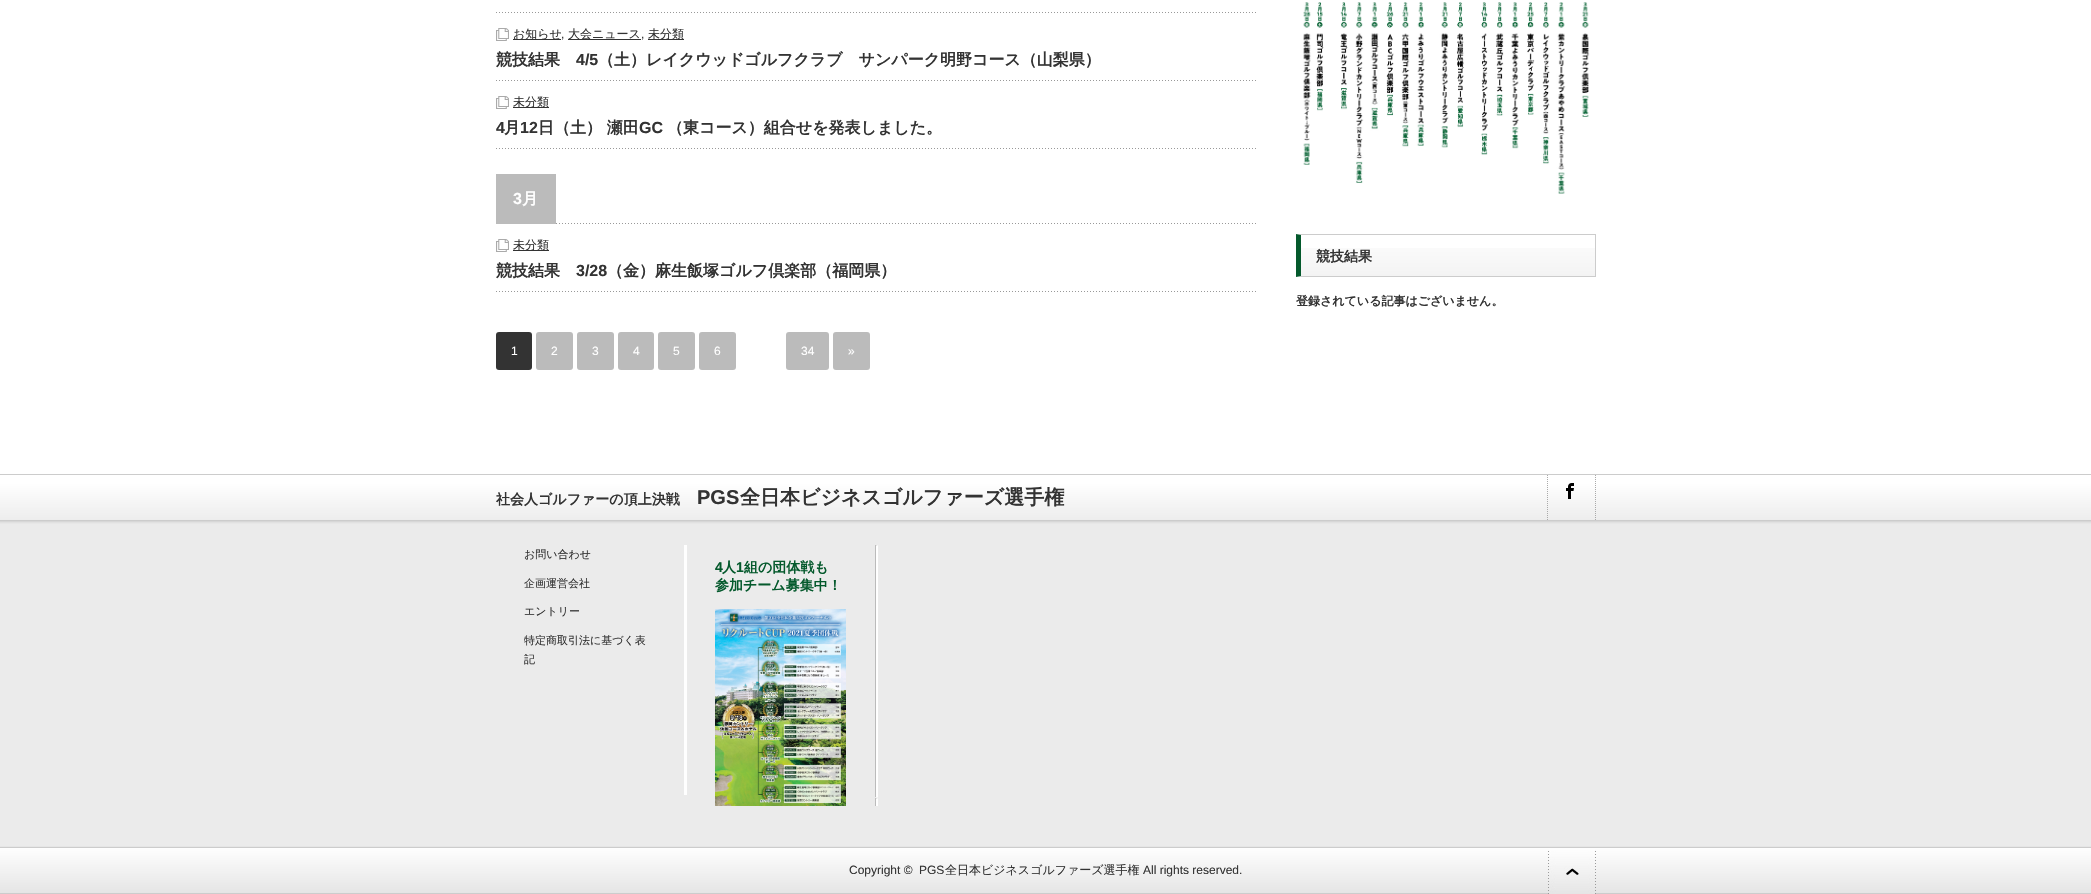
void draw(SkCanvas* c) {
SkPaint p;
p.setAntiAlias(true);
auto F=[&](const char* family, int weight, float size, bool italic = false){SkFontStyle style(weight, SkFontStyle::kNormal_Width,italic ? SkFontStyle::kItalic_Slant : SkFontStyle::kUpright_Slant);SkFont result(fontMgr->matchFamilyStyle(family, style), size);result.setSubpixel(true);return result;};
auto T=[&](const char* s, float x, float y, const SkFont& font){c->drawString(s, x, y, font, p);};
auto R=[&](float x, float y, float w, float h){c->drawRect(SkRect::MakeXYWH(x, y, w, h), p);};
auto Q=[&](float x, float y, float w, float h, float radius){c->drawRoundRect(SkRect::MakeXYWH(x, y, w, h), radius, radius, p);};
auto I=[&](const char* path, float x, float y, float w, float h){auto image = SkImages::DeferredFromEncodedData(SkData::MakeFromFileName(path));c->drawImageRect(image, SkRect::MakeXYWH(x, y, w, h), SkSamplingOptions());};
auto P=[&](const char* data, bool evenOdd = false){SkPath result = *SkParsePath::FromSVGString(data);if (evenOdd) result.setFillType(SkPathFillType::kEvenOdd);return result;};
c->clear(0xffffffff);
I("1.png",496,12,760,1);
I("1.png",496,80,760,1);
I("2.png",496,28,13,13);
p.setColor(0xff333333);
R(513,39,48,1);
auto f1 = F("WenQuanYi Zen Hei",500,12);
T("お知らせ",513,38,f1);
auto f2 = F("Liberation Sans",400,12);
T(",",561,38,f2);
R(568,39,73,1);
T("大会ニュース",568,38,f1);
T(",",641,38,f2);
R(648,39,36,1);
T("未分類",648,38,f1);
auto f3 = F("WenQuanYi Zen Hei",700,16);
T("競技結果",496,65,f3);
auto f4 = F("Liberation Sans",700,16);
T("4/5",576,65,f4);
T("（土）レイクウッドゴルフクラブ　サンパーク明野コース（山梨県）",598,65,f3);
I("1.png",496,148,760,1);
I("2.png",496,96,13,13);
R(513,107,36,1);
T("未分類",513,106,f1);
T("4",496,133,f4);
T("月",504,133,f3);
T("12",520,133,f4);
T("日（土） 瀬田",538,133,f3);
T("GC",639,133,f4);
T("（東コース）組合せを発表しました。",667,133,f3);
I("3.png",556,223,700,1);
p.setColor(0xffbbbbbb);
R(496,174,60,50);
p.setColor(0xffffffff);
T("3",513,204,f4);
T("月",522,204,f3);
I("1.png",496,291,760,1);
I("2.png",496,239,13,13);
p.setColor(0xff333333);
R(513,250,36,1);
T("未分類",513,249,f1);
T("競技結果",496,276,f3);
T("3/28",576,276,f4);
T("（金）麻生飯塚ゴルフ倶楽部（福岡県）",607,276,f3);
Q(496,332,36,38,3);
p.setColor(0xffffffff);
T("1",511,355,f2);
p.setColor(0xffbbbbbb);
Q(536,332,37,38,3);
p.setColor(0xffffffff);
T("2",551,355,f2);
p.setColor(0xffbbbbbb);
Q(577,332,37,38,3);
p.setColor(0xffffffff);
T("3",592,355,f2);
p.setColor(0xffbbbbbb);
Q(618,332,36,38,3);
p.setColor(0xffffffff);
T("4",633,355,f2);
p.setColor(0xffbbbbbb);
Q(658,332,37,38,3);
p.setColor(0xffffffff);
T("5",673,355,f2);
p.setColor(0xffbbbbbb);
Q(699,332,37,38,3);
p.setColor(0xffffffff);
T("6",714,355,f2);
p.setColor(0xffbbbbbb);
Q(786,332,43,38,3);
p.setColor(0xffffffff);
T("34",801,355,f2);
p.setColor(0xffbbbbbb);
Q(833,332,37,38,3);
p.setColor(0xffffffff);
T("»",848,355,f2);
I("4.png",1303,2,287,192);
I("5.png",1301,248,294,28);
p.setColor(0xffcccccc);
c->drawPath(P("M1296 234h300l-1 1h-294z"),p);
R(1595,234,1,43);
c->drawPath(P("M1596 277h-300l5-1h294z"),p);
p.setColor(0xff04592c);
c->drawPath(P("M1296 277v-43l5 1v41z"),p);
auto f5 = F("WenQuanYi Zen Hei",700,14);
p.setColor(0xff333333);
T("競技結果",1316,261,f5);
auto f6 = F("WenQuanYi Zen Hei",700,12);
T("登録されている記事はございません。",1296,305,f6);
I("6.png",0,474,2091,71);
T("社会人ゴルファーの頂上決戦",496,504,f5);
auto f7 = F("Liberation Sans",700,20);
T("PGS",697,504,f7);
auto f8 = F("WenQuanYi Zen Hei",700,20);
T("全日本ビジネスゴルファーズ選手権",740,504,f8);
p.setStroke(true);
p.setStrokeWidth(1);
p.setColor(0xffaaaaaa);
p.setPathEffect(SkDashPathEffect::Make({{1,1}}, 0));
c->drawPath(P("M1595.5 475v45"),p);
p.setPathEffect(nullptr);
p.setPathEffect(SkDashPathEffect::Make({{1,1}}, 0));
c->drawPath(P("M1547.5 475v45"),p);
p.setPathEffect(nullptr);
I("7.png",1566,483,8,16);
p.setStroke(false);
p.setColor(0xffebebeb);
R(0,545,2091,301);
p.setColor(0xfffefefe);
R(684,545,3,250);
auto f9 = F("WenQuanYi Zen Hei",500,11);
p.setColor(0xff333333);
T("お問い合わせ",524,558,f9);
T("企画運営会社",524,587,f9);
T("エントリー",524,615,f9);
T("特定商取引法に基づく表",524,644,f9);
T("記",524,663,f9);
I("8.png",875,545,3,261);
auto f10 = F("Liberation Sans",700,14);
p.setColor(0xff04592c);
T("4",715,572,f10);
T("人",722,572,f5);
T("1",736,572,f10);
T("組の団体戦も",744,572,f5);
T("参加チーム募集中！",715,590,f5);
I("9.png",715,609,131,197);
I("10.png",0,846,2091,48);
p.setColor(0xff333333);
T("Copyright ©",849,874,f2);
T("PGS",919,874,f2);
T("全日本ビジネスゴルファーズ選手権",945,874,f1);
T("All rights reserved.",1143,874,f2);
I("11.png",1548,849,48,45);
}
